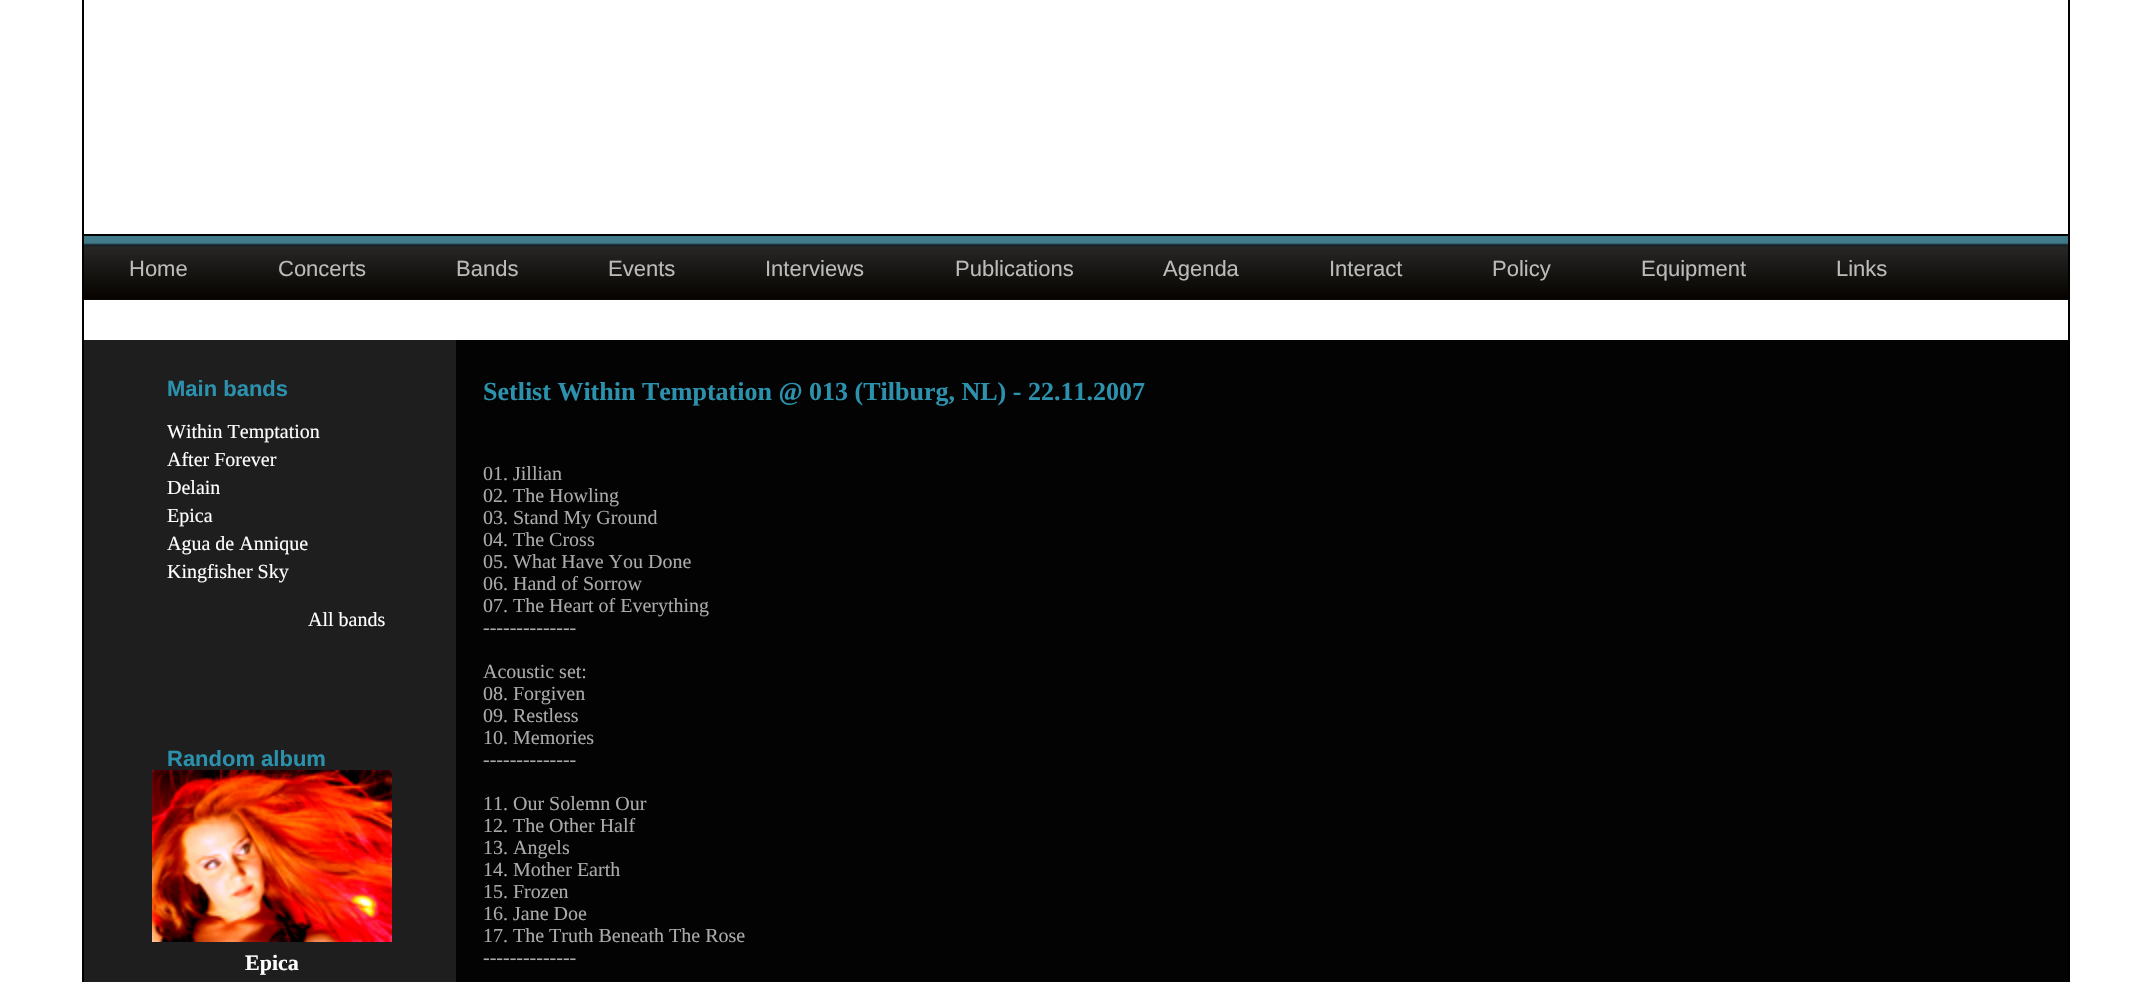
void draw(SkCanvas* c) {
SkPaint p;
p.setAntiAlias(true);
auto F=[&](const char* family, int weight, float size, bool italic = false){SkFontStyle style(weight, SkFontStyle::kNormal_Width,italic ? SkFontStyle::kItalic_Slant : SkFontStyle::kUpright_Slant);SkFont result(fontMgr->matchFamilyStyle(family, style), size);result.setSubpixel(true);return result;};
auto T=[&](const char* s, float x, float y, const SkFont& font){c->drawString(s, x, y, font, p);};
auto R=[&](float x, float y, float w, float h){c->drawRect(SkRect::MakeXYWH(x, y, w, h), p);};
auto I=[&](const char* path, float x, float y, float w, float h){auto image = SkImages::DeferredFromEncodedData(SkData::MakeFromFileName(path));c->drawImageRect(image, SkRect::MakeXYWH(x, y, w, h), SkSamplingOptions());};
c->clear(0xffffffff);
p.setColor(0xff000000);
R(2068,0,2,982);
R(82,0,2,982);
R(84,234,1984,2);
I("1.png",84,236,1984,64);
auto f1 = F("Liberation Sans",400,22);
p.setColor(0xffbbbbbb);
T("Home",129,276,f1);
T("Concerts",278,276,f1);
T("Bands",456,276,f1);
T("Events",608,276,f1);
T("Interviews",765,276,f1);
T("Publications",955,276,f1);
T("Agenda",1163,276,f1);
T("Interact",1329,276,f1);
T("Policy",1492,276,f1);
T("Equipment",1641,276,f1);
T("Links",1836,276,f1);
p.setColor(0xff1e1e1e);
R(84,340,372,642);
auto f2 = F("Liberation Sans",700,22);
p.setColor(0xff2b91ac);
T("Main bands",167,396,f2);
auto f3 = F("Liberation Serif",400,20);
p.setColor(0xffffffff);
T("Within Temptation",167,438,f3);
T("After Forever",167,466,f3);
T("Delain",167,494,f3);
T("Epica",167,522,f3);
T("Agua de Annique",167,550,f3);
T("Kingfisher Sky",167,578,f3);
T("All bands",308,626,f3);
p.setColor(0xff2b91ac);
T("Random album",167,766,f2);
I("2.png",152,770,240,172);
auto f4 = F("Liberation Serif",700,22);
p.setColor(0xffffffff);
T("Epica",245,970,f4);
p.setColor(0xff030303);
R(456,340,1612,642);
auto f5 = F("Liberation Serif",700,26);
p.setColor(0xff2b91ac);
T("Setlist Within Temptation @ 013 (Tilburg, NL) - 22.11.2007",483,400,f5);
p.setColor(0xffaaaaaa);
T("01. Jillian",483,480,f3);
T("02. The Howling",483,502,f3);
T("03. Stand My Ground",483,524,f3);
T("04. The Cross",483,546,f3);
T("05. What Have You Done",483,568,f3);
T("06. Hand of Sorrow",483,590,f3);
T("07. The Heart of Everything",483,612,f3);
T("--------------",483,634,f3);
T("Acoustic set:",483,678,f3);
T("08. Forgiven",483,700,f3);
T("09. Restless",483,722,f3);
T("10. Memories",483,744,f3);
T("--------------",483,766,f3);
T("11. Our Solemn Our",483,810,f3);
T("12. The Other Half",483,832,f3);
T("13. Angels",483,854,f3);
T("14. Mother Earth",483,876,f3);
T("15. Frozen",483,898,f3);
T("16. Jane Doe",483,920,f3);
T("17. The Truth Beneath The Rose",483,942,f3);
T("--------------",483,964,f3);
}
